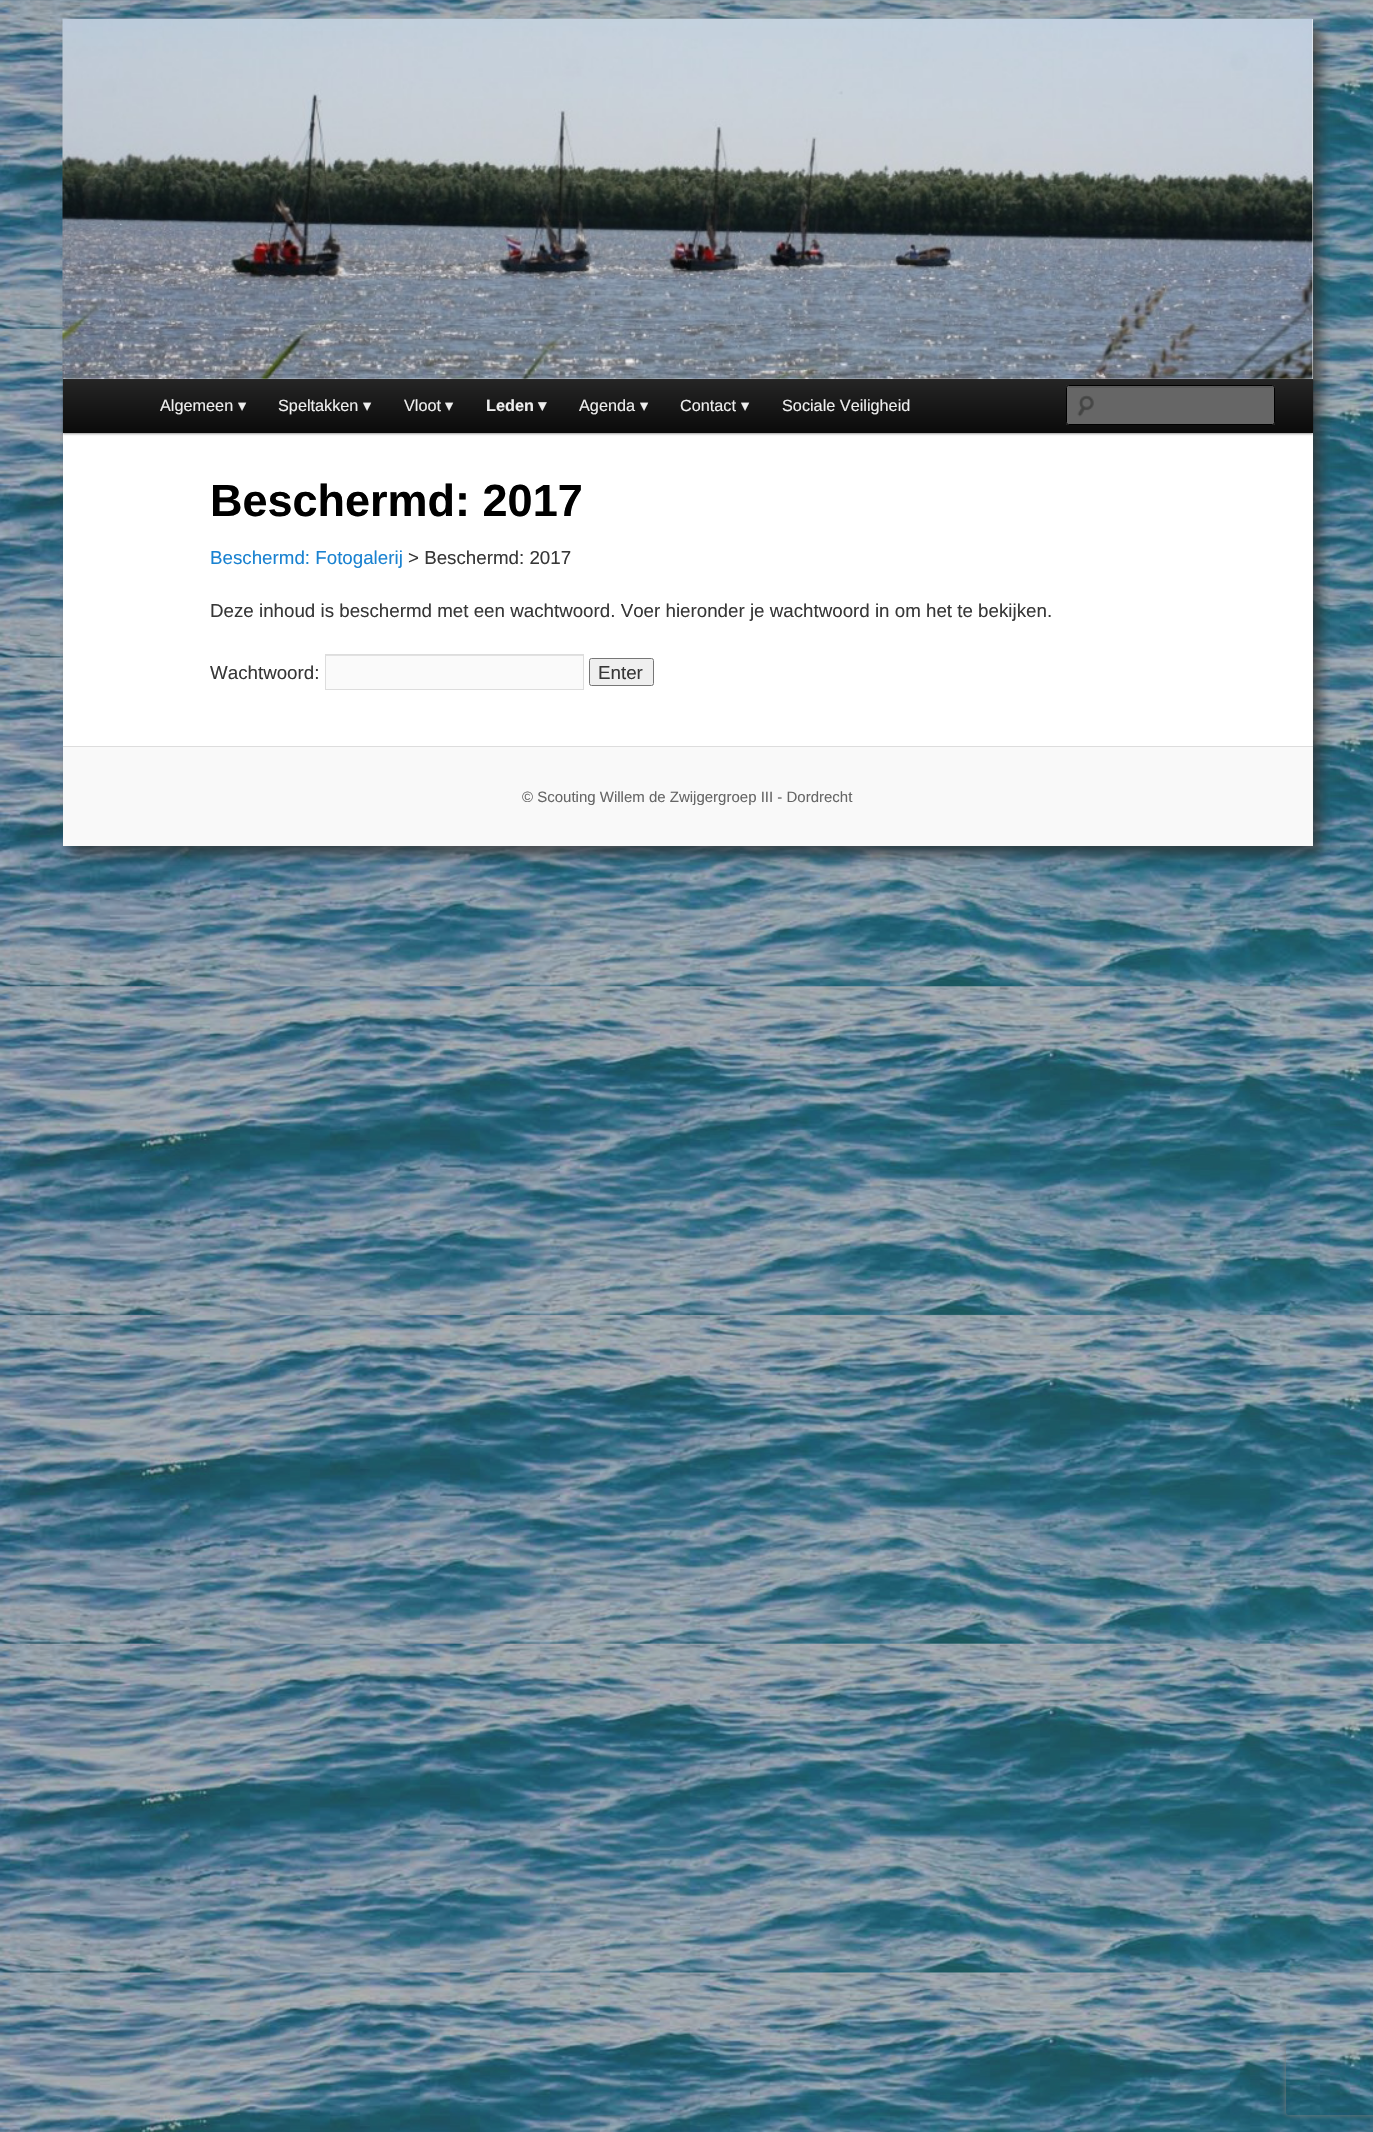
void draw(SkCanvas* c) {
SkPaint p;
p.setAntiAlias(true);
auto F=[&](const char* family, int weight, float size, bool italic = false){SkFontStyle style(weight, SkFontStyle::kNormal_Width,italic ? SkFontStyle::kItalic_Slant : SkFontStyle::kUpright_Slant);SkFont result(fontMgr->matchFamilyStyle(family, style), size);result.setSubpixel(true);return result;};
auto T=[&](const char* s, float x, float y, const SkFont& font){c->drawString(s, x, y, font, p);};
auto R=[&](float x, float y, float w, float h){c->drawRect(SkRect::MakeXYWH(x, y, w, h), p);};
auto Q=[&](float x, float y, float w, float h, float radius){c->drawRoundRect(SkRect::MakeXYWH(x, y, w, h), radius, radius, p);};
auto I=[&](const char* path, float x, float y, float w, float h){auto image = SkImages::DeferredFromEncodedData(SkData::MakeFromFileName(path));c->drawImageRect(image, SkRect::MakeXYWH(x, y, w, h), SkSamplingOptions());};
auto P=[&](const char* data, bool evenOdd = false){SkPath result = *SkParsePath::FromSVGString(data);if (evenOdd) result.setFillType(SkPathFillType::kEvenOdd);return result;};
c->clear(0xffffffff);
I("1.png",0,0,1373,2132);
p.setColor(0xbf323232);
p.setMaskFilter(SkMaskFilter::MakeBlur(kNormal_SkBlurStyle, 6));
c->drawRect(SkRect::MakeXYWH(71,28,1250,827),p);
p.setMaskFilter(nullptr);
p.setColor(0xffffffff);
R(63,19,1250,727);
p.setColor(0x66000000);
p.setMaskFilter(SkMaskFilter::MakeBlur(kNormal_SkBlurStyle, 1));
c->drawRect(SkRect::MakeXYWH(63,380,1250,54),p);
p.setMaskFilter(nullptr);
I("2.png",62,18,1251,361);
{
const SkColor colors[] = {0xff252525,0xff0a0a0a};
const float stops[] = {0,1};
const SkPoint ends[] = {{688,379}, {688,433}};
p.setShader(SkGradientShader::MakeLinear(ends, colors, stops, 2, SkTileMode::kClamp));
p.setAlpha(255);
}
R(63,379,1250,54);
auto f1 = F("Liberation Sans",400,16.25);
p.setShader(nullptr);
p.setColor(0xffeeeeee);
T("Algemeen",160,411,f1);
auto f2 = F("DejaVu Sans",400,16.25);
T("▾",238,411,f2);
T("Speltakken",278,411,f1);
T("▾",363,411,f2);
T("Vloot",404,411,f1);
T("▾",445,411,f2);
auto f3 = F("Liberation Sans",700,16.25);
T("Leden",486,411,f3);
auto f4 = F("DejaVu Sans",700,16.25);
T("▾",538,411,f4);
T("Agenda",579,411,f1);
T("▾",640,411,f2);
T("Contact",680,411,f1);
T("▾",741,411,f2);
T("Sociale Veiligheid",782,411,f1);
p.setColor(0xff666666);
Q(1066,385,209,40,2.5);
I("3.png",1077,395,17,22);
p.setColor(0xff5c5c5c);
c->drawPath(P("M1069 388h203c1 0 2 0 2 1v-3h-1h-204c-1 1-1 2-1 3c0-1 0-1 1-1z"),p);
p.setStroke(true);
p.setStrokeWidth(1);
p.setColor(0xff000000);
c->drawRoundRect(SkRect::MakeXYWH(1066.5,385.5,208,39),2,2,p);
auto f5 = F("Liberation Sans",700,45);
p.setStroke(false);
T("Beschermd: 2017",210,516,f5);
auto f6 = F("Liberation Sans",400,18.75);
p.setColor(0xff1982d1);
T("Beschermd: Fotogalerij",210,564,f6);
p.setColor(0xff373737);
T("> Beschermd: 2017",408,564,f6);
T("Deze inhoud is beschermd met een wachtwoord. Voer hieronder je wachtwoord in om het te bekijken.",210,617,f6);
T("Wachtwoord:",210,679,f6);
p.setColor(0xfffafafa);
R(326,656,257,33);
p.setColor(0xffe1e1e1);
R(326,655,257,1);
p.setStroke(true);
p.setColor(0xffdddddd);
c->drawRect(SkRect::MakeXYWH(325.5,654.5,258,35),p);
p.setStroke(false);
p.setColor(0xffefefef);
c->drawRoundRect(SkRect::MakeXYWH(589.5,658.5,64,27),2,2,p);
p.setStroke(true);
p.setColor(0xff767676);
c->drawRoundRect(SkRect::MakeXYWH(589.5,658.5,64,27),2,2,p);
p.setStroke(false);
p.setColor(0xff373737);
T("Enter",598,679,f6);
p.setColor(0xfff9f9f9);
R(63,747,1250,99);
p.setColor(0xffdddddd);
R(63,746,1250,1);
auto f7 = F("Liberation Sans",400,15);
p.setColor(0xff666666);
T("© Scouting Willem de Zwijgergroep III - Dordrecht",522,802,f7);
c->save();
c->clipPath(P("M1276 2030h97v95h-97zm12.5 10h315c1.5 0 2.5 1 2.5 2.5v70c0 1.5-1 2.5-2.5 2.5h-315c-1.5 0-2.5-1-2.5-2.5v-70c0-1.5 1-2.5 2.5-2.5z",true),true);
p.setColor(0xff808080);
p.setMaskFilter(SkMaskFilter::MakeBlur(kNormal_SkBlurStyle, 3));
c->drawRoundRect(SkRect::MakeXYWH(1286,2040,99,75),2.5,2.5,p);
p.setMaskFilter(nullptr);
c->restore();
}
